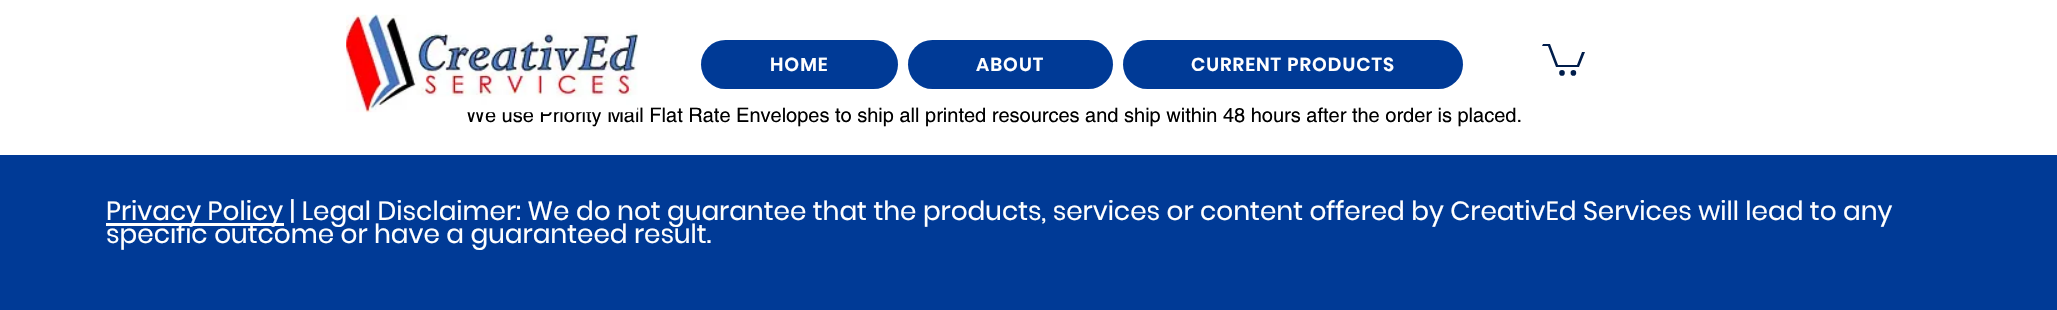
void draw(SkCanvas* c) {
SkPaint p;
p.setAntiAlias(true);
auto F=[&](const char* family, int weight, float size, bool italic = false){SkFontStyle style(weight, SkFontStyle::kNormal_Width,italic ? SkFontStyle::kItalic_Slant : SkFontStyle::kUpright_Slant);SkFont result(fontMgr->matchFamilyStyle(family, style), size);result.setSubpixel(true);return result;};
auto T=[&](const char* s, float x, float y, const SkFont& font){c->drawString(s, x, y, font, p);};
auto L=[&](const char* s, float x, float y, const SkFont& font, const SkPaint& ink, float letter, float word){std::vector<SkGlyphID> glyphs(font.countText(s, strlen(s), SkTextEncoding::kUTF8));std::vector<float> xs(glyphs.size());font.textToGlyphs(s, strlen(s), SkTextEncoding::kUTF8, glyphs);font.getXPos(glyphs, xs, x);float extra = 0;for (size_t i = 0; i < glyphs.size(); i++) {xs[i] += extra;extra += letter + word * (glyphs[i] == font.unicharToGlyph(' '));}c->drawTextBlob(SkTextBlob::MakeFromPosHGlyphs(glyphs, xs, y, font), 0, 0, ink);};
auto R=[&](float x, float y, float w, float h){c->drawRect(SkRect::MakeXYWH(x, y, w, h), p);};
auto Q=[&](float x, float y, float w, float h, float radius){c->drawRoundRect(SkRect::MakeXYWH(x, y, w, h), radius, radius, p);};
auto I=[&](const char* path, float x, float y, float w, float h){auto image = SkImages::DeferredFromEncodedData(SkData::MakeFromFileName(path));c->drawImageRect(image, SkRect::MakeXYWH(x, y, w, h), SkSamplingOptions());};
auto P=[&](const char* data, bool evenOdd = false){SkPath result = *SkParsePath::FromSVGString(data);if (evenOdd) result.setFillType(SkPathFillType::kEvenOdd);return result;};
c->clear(0xffffffff);
auto f1 = F("helvetica",400,20);
p.setColor(0xff000000);
T("We use Priority Mail Flat Rate Envelopes to ship all printed resources and ship within 48 hours after the order is placed.",466,122,f1);
I("1.png",346,14,292,99);
p.setColor(0xff003a96);
Q(701,40,197,49,24.5);
auto f2 = F("Poppins",600,18.75);
p.setColor(0xffffffff);
L("HOME",770,71,f2,p,1,0);
p.setColor(0xff003a96);
Q(908,40,205,49,24.5);
p.setColor(0xffffffff);
L("ABOUT",976,71,f2,p,1,0);
p.setColor(0xff003a96);
Q(1123,40,340,49,24.5);
p.setColor(0xffffffff);
L("CURRENT PRODUCTS",1191,71,f2,p,1,0);
p.setColor(0xff001d4b);
c->drawPath(P("M1585 52l-6 15h-23l-8-21h-6l1-2h7l8 21h19l5-13"),p);
c->drawCircle(1573.4,72.9,2.8,p);
c->drawCircle(1562,72.9,2.8,p);
p.setColor(0xff003a96);
R(0,155,2057,155);
p.setColor(0xffffffff);
R(106,223,178,3);
auto f3 = F("Poppins",400,26.25);
T("Privacy Policy | Legal Disclaimer: We do not guarantee that the products, services or content offered by CreativEd Services will lead to any",106,220,f3);
T("specific outcome or have a guaranteed result.",106,243,f3);
}
